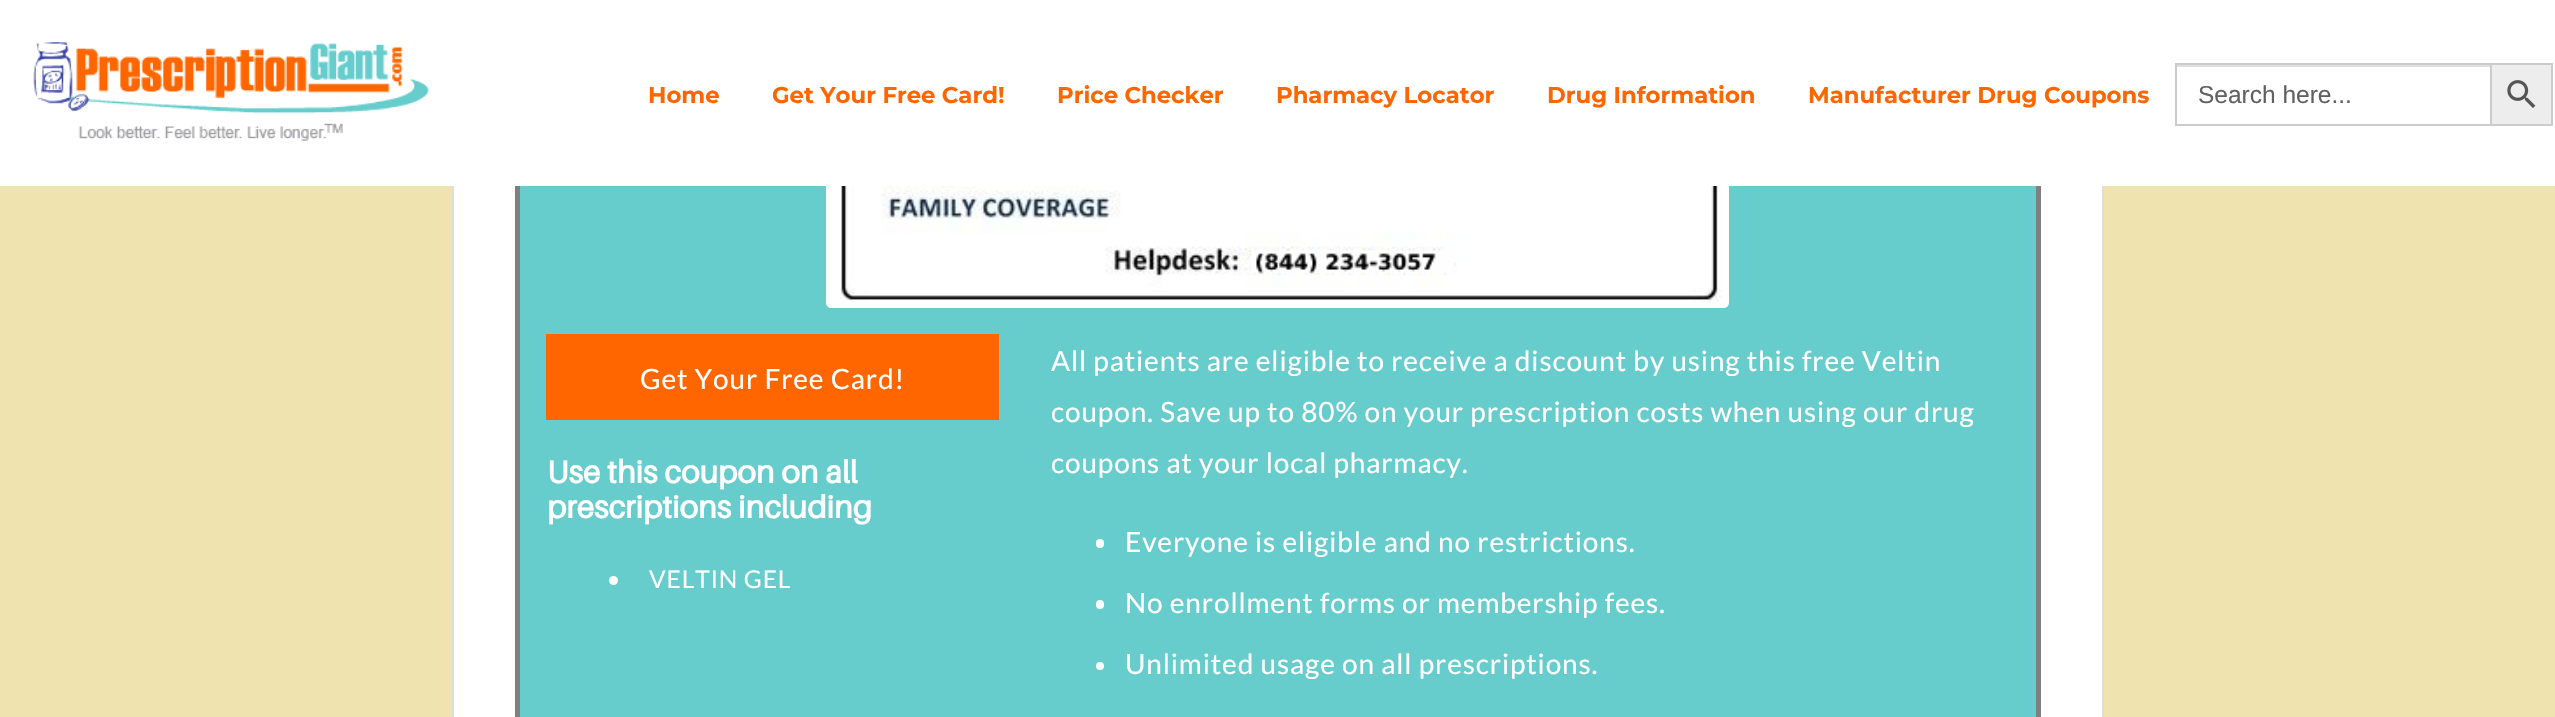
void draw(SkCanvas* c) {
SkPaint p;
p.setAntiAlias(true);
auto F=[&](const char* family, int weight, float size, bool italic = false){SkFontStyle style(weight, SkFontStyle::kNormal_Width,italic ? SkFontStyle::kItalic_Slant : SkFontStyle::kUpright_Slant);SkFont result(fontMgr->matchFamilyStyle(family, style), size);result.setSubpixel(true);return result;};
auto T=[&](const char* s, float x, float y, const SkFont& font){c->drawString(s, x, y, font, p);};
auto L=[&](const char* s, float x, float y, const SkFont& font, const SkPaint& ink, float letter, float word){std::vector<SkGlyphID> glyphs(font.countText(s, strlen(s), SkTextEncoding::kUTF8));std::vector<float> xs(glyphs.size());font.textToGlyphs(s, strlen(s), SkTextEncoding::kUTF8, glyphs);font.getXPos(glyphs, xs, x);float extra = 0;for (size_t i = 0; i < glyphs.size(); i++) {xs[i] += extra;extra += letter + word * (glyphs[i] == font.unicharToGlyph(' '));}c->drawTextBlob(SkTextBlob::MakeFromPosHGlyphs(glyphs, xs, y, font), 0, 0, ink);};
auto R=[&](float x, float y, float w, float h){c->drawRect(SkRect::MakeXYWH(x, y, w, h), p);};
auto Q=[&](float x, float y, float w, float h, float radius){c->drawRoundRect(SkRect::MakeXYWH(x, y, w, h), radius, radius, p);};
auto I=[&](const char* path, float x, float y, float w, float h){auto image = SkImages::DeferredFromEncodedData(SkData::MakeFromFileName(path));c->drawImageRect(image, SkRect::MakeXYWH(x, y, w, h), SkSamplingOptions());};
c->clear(0xffefe4b0);
p.setColor(0xffffffff);
R(454,186,1648,531);
p.setColor(0xff66cccc);
R(520,186,1516,531);
p.setStroke(true);
p.setStrokeWidth(5);
p.setColor(0xff7f7f7f);
c->drawRect(SkRect::MakeXYWH(517.5,-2.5,1521,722),p);
p.setStroke(false);
p.setColor(0xffffffff);
R(0,0,2555,186);
I("1.png",33,42,396,99);
auto f1 = F("Montserrat",700,22.75);
p.setColor(0xffff6600);
T("Home",648,103,f1);
T("Get Your Free Card!",772,103,f1);
T("Price Checker",1057,103,f1);
T("Pharmacy Locator",1276,103,f1);
T("Drug Information",1547,103,f1);
T("Manufacturer Drug Coupons",1808,103,f1);
p.setColor(0xffdfdfdf);
R(2177,65,313,2);
p.setColor(0xffcccccc);
R(2175,63,315,2);
R(2175,124,315,2);
R(2175,63,2,63);
auto f2 = F("Liberation Sans",400,24.5);
p.setColor(0xff616161);
T("Search here...",2198,103,f2);
p.setColor(0xffededed);
c->drawRect(SkRect::MakeXYWH(2491,64,61,61),p);
p.setStroke(true);
p.setStrokeWidth(2);
p.setColor(0xffcccccc);
c->drawRect(SkRect::MakeXYWH(2491,64,61,61),p);
I("2.png",2507,80,29,28);
p.setStroke(false);
p.setColor(0xffdddddd);
R(2102,186,2,531);
R(452,186,2,531);
I("3.png",826,186,903,122);
p.setColor(0xffff6600);
R(546,334,453,86);
auto f3 = F("Lato",400,28);
p.setColor(0xffffffff);
L("Get Your Free Card!",640,389,f3,p,.88,0);
auto f4 = F("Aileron",700,31.5);
T("Use this coupon on all",547,483,f4);
T("prescriptions including",547,518,f4);
c->drawCircle(613.5,580.5,4.5,p);
auto f5 = F("Lato",400,24.5);
L("VELTIN GEL",649,588,f5,p,.88,0);
L("All patients are eligible to receive a discount by using this free Veltin",1051,371,f3,p,.88,0);
L("coupon. Save up to 80% on your prescription costs when using our drug",1051,422,f3,p,.88,0);
L("coupons at your local pharmacy.",1051,473,f3,p,.88,0);
Q(1096,539,8,9,4);
L("Everyone is eligible and no restrictions.",1125,552,f3,p,.88,0);
Q(1096,600,8,9,4);
L("No enrollment forms or membership fees.",1125,613,f3,p,.88,0);
c->drawCircle(1100,666,4,p);
L("Unlimited usage on all prescriptions.",1125,674,f3,p,.88,0);
}
